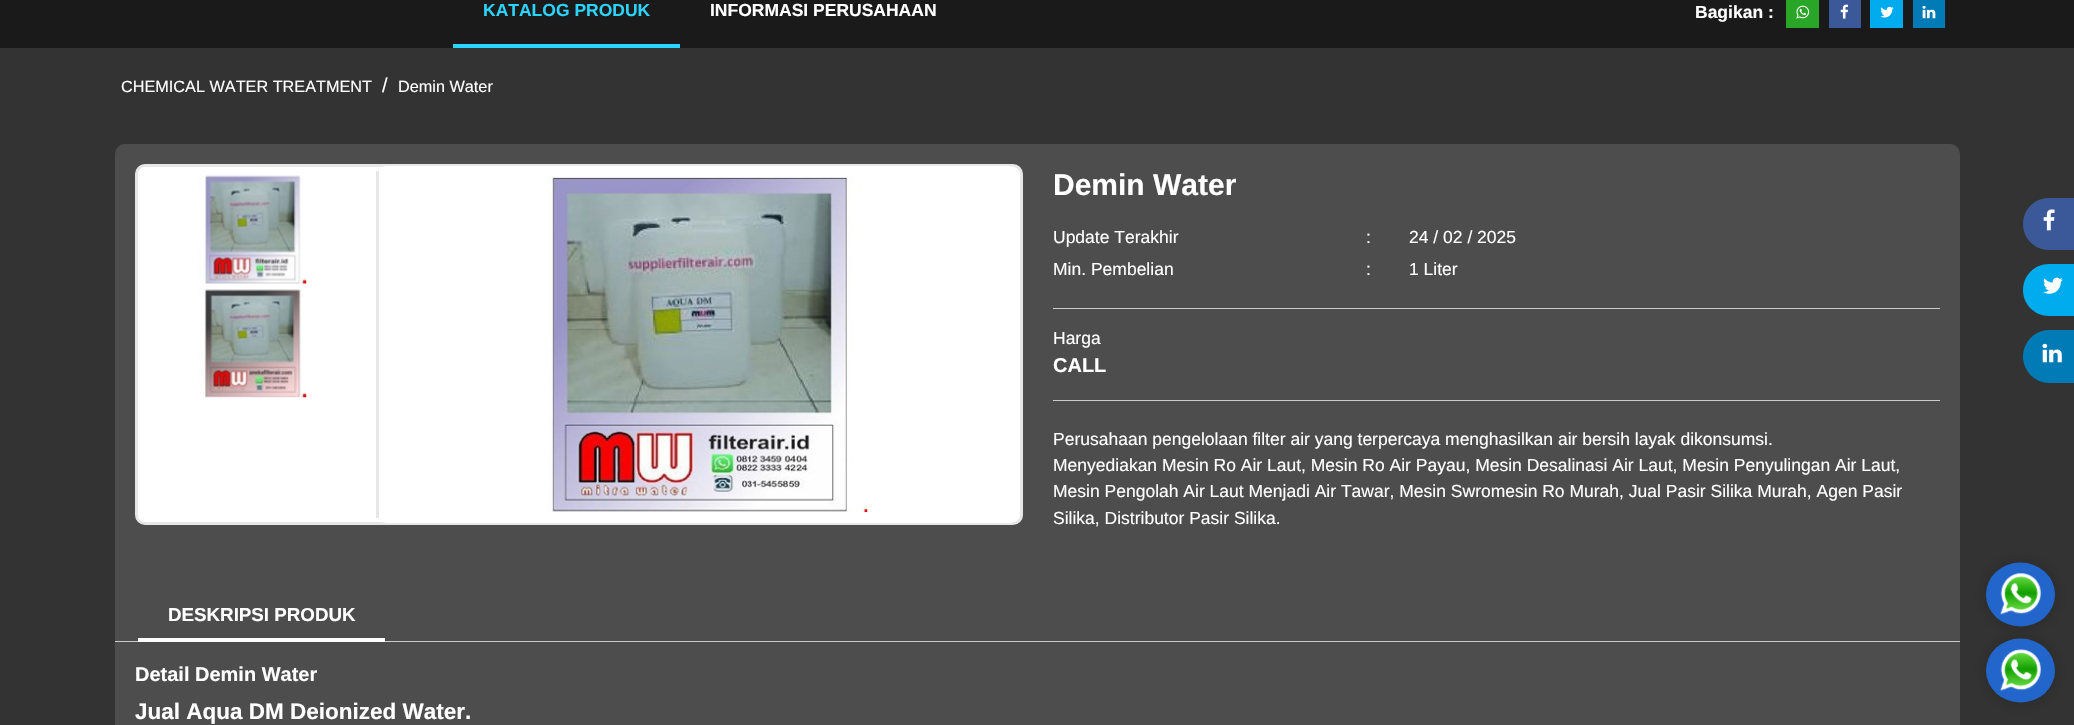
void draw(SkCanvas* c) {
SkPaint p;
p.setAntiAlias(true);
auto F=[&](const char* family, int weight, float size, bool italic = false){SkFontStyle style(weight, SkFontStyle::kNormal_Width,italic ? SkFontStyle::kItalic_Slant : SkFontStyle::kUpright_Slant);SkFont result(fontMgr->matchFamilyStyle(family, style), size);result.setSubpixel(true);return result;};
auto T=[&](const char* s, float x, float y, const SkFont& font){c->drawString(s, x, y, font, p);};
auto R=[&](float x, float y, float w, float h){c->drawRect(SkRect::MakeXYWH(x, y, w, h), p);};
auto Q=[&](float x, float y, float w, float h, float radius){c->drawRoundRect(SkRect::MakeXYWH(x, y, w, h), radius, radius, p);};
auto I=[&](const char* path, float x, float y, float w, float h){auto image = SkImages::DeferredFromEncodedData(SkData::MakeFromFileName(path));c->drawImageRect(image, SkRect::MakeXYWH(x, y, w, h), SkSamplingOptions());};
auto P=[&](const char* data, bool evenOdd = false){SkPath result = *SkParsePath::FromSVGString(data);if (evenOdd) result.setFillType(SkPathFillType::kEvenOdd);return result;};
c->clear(0xff333333);
p.setColor(0xff1a1a1a);
R(0,0,2074,48);
p.setColor(0xff2ad4ff);
R(453,44,227,4);
auto f1 = F("Liberation Sans",700,17.5);
T("KATALOG PRODUK",483,16,f1);
p.setColor(0xffffffff);
T("INFORMASI PERUSAHAAN",710,16,f1);
T("Bagikan :",1695,18,f1);
p.setColor(0xff29a628);
R(1786,0,33,28);
I("1.png",1796,5,14,14);
p.setColor(0xff3b5998);
R(1829,0,32,28);
I("2.png",1840,4,9,15);
p.setColor(0xff00aced);
R(1870,0,33,28);
I("3.png",1880,6,14,12);
p.setColor(0xff007bb6);
R(1913,0,32,28);
I("4.png",1922,5,14,14);
p.setColor(0x33000000);
p.setMaskFilter(SkMaskFilter::MakeBlur(kNormal_SkBlurStyle, 7.5));
c->drawRoundRect(SkRect::MakeXYWH(1986,563,69,63),31.5,31.5,p);
p.setMaskFilter(nullptr);
p.setColor(0xff2266cc);
c->drawOval(SkRect::MakeXYWH(1986,562.5,69,64),p);
I("5.png",2000,573,41,42);
p.setColor(0x33000000);
p.setMaskFilter(SkMaskFilter::MakeBlur(kNormal_SkBlurStyle, 7.5));
c->drawRoundRect(SkRect::MakeXYWH(1986,639,69,64),32,32,p);
p.setMaskFilter(nullptr);
p.setColor(0xff2266cc);
c->drawOval(SkRect::MakeXYWH(1986,638.5,69,64),p);
I("6.png",2000,649,41,42);
auto f2 = F("Liberation Sans",400,16.25);
p.setColor(0xffffffff);
T("CHEMICAL WATER TREATMENT",121,92,f2);
auto f3 = F("Liberation Sans",400,20);
T("/",382,92,f3);
T("Demin Water",398,92,f2);
p.setColor(0xff4d4d4d);
Q(115,144,1845,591,10);
p.setColor(0xffffffff);
c->drawRoundRect(SkRect::MakeXYWH(136.5,165.5,885,358),8.5,8.5,p);
p.setStroke(true);
p.setStrokeWidth(3);
p.setColor(0xffe7e7e7);
c->drawRoundRect(SkRect::MakeXYWH(136.5,165.5,885,358),8.5,8.5,p);
I("7.png",199,175,108,109);
I("8.png",199,289,108,109);
p.setStroke(false);
p.setColor(0xffffffff);
Q(376,166,644,357,10);
p.setColor(0xffe7e7e7);
R(376,171,3,347);
I("9.png",547,176,321,337);
p.setColor(0xffcccccc);
R(1053,308,887,1);
auto f4 = F("Liberation Sans",700,30);
p.setColor(0xffffffff);
T("Demin Water",1053,195,f4);
auto f5 = F("Liberation Sans",400,17.5);
T("Update Terakhir",1053,243,f5);
T(":",1366,243,f5);
T("24 / 02 / 2025",1409,243,f5);
T("Min. Pembelian",1053,275,f5);
T(":",1366,275,f5);
T("1 Liter",1409,275,f5);
T("Harga",1053,344,f5);
auto f6 = F("Liberation Sans",700,20);
T("CALL",1053,372,f6);
p.setColor(0xffcccccc);
R(1053,400,887,1);
p.setColor(0xffffffff);
T("Perusahaan pengelolaan filter air yang terpercaya menghasilkan air bersih layak dikonsumsi.",1053,445,f5);
T("Menyediakan Mesin Ro Air Laut, Mesin Ro Air Payau, Mesin Desalinasi Air Laut, Mesin Penyulingan Air Laut,",1053,471,f5);
T("Mesin Pengolah Air Laut Menjadi Air Tawar, Mesin Swromesin Ro Murah, Jual Pasir Silika Murah, Agen Pasir",1053,497,f5);
T("Silika, Distributor Pasir Silika.",1053,524,f5);
p.setColor(0xffcccccc);
R(115,641,1845,1);
p.setColor(0xffffffff);
R(138,638,247,4);
auto f7 = F("Liberation Sans",700,18.75);
T("DESKRIPSI PRODUK",168,621,f7);
T("Detail Demin Water",135,681,f6);
auto f8 = F("Liberation Sans",700,22.5);
T("Jual Aqua DM Deionized Water.",135,719,f8);
p.setColor(0xff3b5998);
c->drawPath(P("M2049 198h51v52h-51c-14.5 0-26-11.5-26-26c0-14.5 11.5-26 26-26z"),p);
I("10.png",2043,209,12,22);
p.setColor(0xff00aced);
c->drawPath(P("M2049 264h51v52h-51c-14.5 0-26-11.5-26-26c0-14.5 11.5-26 26-26z"),p);
I("11.png",2043,277,20,17);
p.setColor(0xff007bb6);
c->drawPath(P("M2049.5 330h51.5v53h-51.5c-14.5 0-26.5-12-26.5-26.5c0-14.5 12-26.5 26.5-26.5z"),p);
I("12.png",2042,343,20,20);
}
